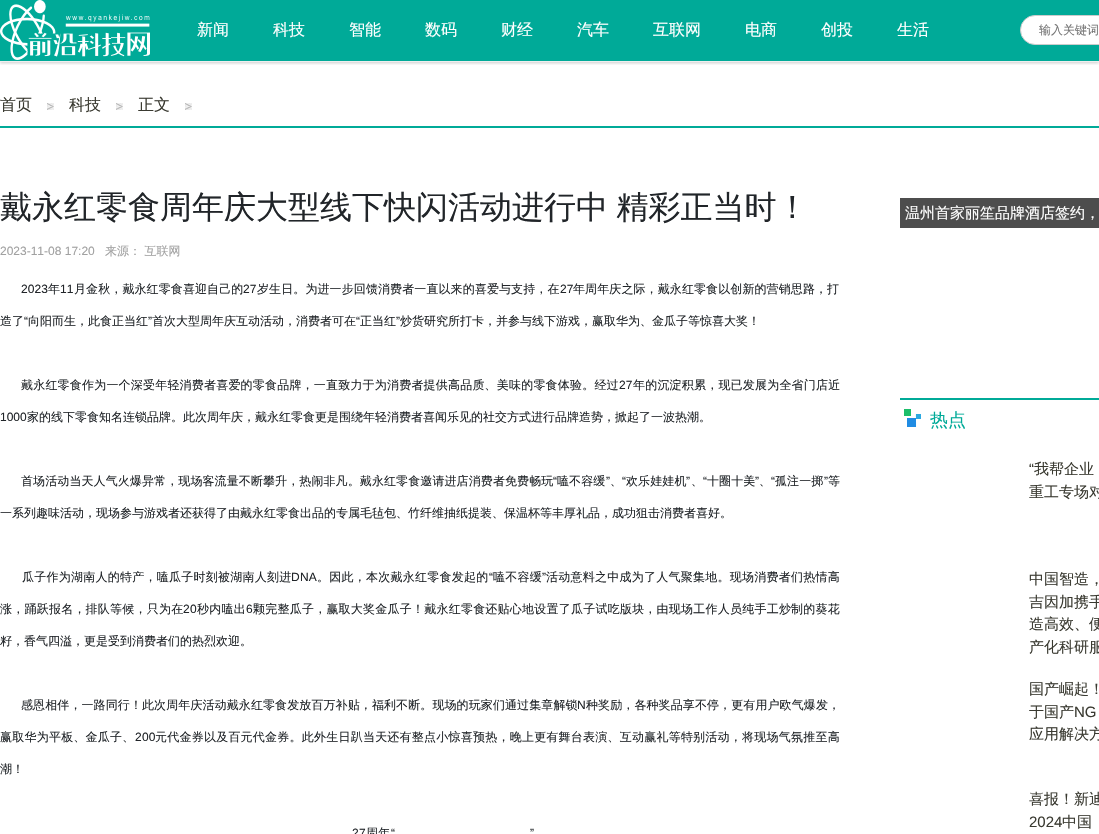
void draw(SkCanvas* c) {
SkPaint p;
p.setAntiAlias(true);
auto F=[&](const char* family, int weight, float size, bool italic = false){SkFontStyle style(weight, SkFontStyle::kNormal_Width,italic ? SkFontStyle::kItalic_Slant : SkFontStyle::kUpright_Slant);SkFont result(fontMgr->matchFamilyStyle(family, style), size);result.setSubpixel(true);return result;};
auto T=[&](const char* s, float x, float y, const SkFont& font){c->drawString(s, x, y, font, p);};
auto L=[&](const char* s, float x, float y, const SkFont& font, const SkPaint& ink, float letter, float word){std::vector<SkGlyphID> glyphs(font.countText(s, strlen(s), SkTextEncoding::kUTF8));std::vector<float> xs(glyphs.size());font.textToGlyphs(s, strlen(s), SkTextEncoding::kUTF8, glyphs);font.getXPos(glyphs, xs, x);float extra = 0;for (size_t i = 0; i < glyphs.size(); i++) {xs[i] += extra;extra += letter + word * (glyphs[i] == font.unicharToGlyph(' '));}c->drawTextBlob(SkTextBlob::MakeFromPosHGlyphs(glyphs, xs, y, font), 0, 0, ink);};
auto R=[&](float x, float y, float w, float h){c->drawRect(SkRect::MakeXYWH(x, y, w, h), p);};
auto I=[&](const char* path, float x, float y, float w, float h){auto image = SkImages::DeferredFromEncodedData(SkData::MakeFromFileName(path));c->drawImageRect(image, SkRect::MakeXYWH(x, y, w, h), SkSamplingOptions());};
c->clear(0xffffffff);
p.setColor(0xff00aa98);
R(0,0,1099,61);
c->save();
c->clipRect(SkRect::MakeXYWH(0,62,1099,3));
p.setColor(0x33000000);
p.setMaskFilter(SkMaskFilter::MakeBlur(kNormal_SkBlurStyle, 1.5));
c->drawRect(SkRect::MakeXYWH(0,1,1099,62),p);
p.setMaskFilter(nullptr);
c->restore();
p.setColor(0xffefefef);
R(0,61,1099,1);
I("1.png",0,0,150,60);
auto f1 = F("WenQuanYi Zen Hei",500,16);
p.setColor(0xffffffff);
T("新闻",197,35,f1);
T("科技",273,35,f1);
T("智能",349,35,f1);
T("数码",425,35,f1);
T("财经",501,35,f1);
T("汽车",577,35,f1);
T("互联网",653,35,f1);
T("电商",745,35,f1);
T("创投",821,35,f1);
T("生活",897,35,f1);
c->drawRoundRect(SkRect::MakeXYWH(1020.5,15.5,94,29),14.5,14.5,p);
p.setStroke(true);
p.setStrokeWidth(1);
p.setColor(0xffcccccc);
c->drawRoundRect(SkRect::MakeXYWH(1020.5,15.5,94,29),14.5,14.5,p);
auto f2 = F("WenQuanYi Zen Hei",500,12);
p.setStroke(false);
p.setColor(0xff757575);
T("输入关键词",1039,34,f2);
p.setColor(0xff00aa98);
R(0,126,1099,2);
I("2.png",47,103,7,7);
p.setColor(0xff3a3a31);
T("首页",0,110,f1);
I("2.png",116,103,7,7);
T("科技",69,110,f1);
I("2.png",185,103,7,7);
T("正文",138,110,f1);
auto f3 = F("WenQuanYi Zen Hei",500,32);
p.setColor(0xff212529);
L("戴永红零食周年庆大型线下快闪活动进行中 精彩正当时！",0,218,f3,p,0,-1);
auto f4 = F("Liberation Sans",400,12);
p.setColor(0xffa1a1a1);
T("2023-11-08 17:20",0,255,f4);
T("来源： 互联网",105,255,f2);
p.setColor(0xff212529);
L("2023",21,293,f4,p,.1,0);
L("年",48,293,f2,p,.1,0);
L("11",60,293,f4,p,.1,0);
L("月金秋，戴永红零食喜迎自己的",74,293,f2,p,.1,0);
L("27",243,293,f4,p,.1,0);
L("岁生日。为进一步回馈消费者一直以来的喜爱与支持，在",257,293,f2,p,.1,0);
L("27",560,293,f4,p,.1,0);
L("年周年庆之际，戴永红零食以创新的营销思路，打",573,293,f2,p,.1,0);
T("造了",0,325,f2);
T("“",24,325,f4);
T("向阳而生，此食正当红",28,325,f2);
T("”",148,325,f4);
T("首次大型周年庆互动活动，消费者可在",152,325,f2);
T("“",356,325,f4);
T("正当红",360,325,f2);
T("”",396,325,f4);
T("炒货研究所打卡，并参与线下游戏，赢取华为、金瓜子等惊喜大奖！",400,325,f2);
L("戴永红零食作为一个深受年轻消费者喜爱的零食品牌，一直致力于为消费者提供高品质、美味的零食体验。经过",21,389,f2,p,.2,0);
L("27",619,389,f4,p,.2,0);
L("年的沉淀积累，现已发展为全省门店近",633,389,f2,p,.2,0);
T("1000",0,421,f4);
T("家的线下零食知名连锁品牌。此次周年庆，戴永红零食更是围绕年轻消费者喜闻乐见的社交方式进行品牌造势，掀起了一波热潮。",27,421,f2);
L("首场活动当天人气火爆异常，现场客流量不断攀升，热闹非凡。戴永红零食邀请进店消费者免费畅玩",21,485,f2,p,.1,0);
L("“",553,485,f4,p,.1,0);
L("嗑不容缓",557,485,f2,p,.1,0);
L("”",606,485,f4,p,.1,0);
L("“",622,485,f4,p,.1,0);
L("欢乐娃娃机",626,485,f2,p,.1,0);
L("”",686,485,f4,p,.1,0);
L("“",703,485,f4,p,.1,0);
L("十圈十美",707,485,f2,p,.1,0);
L("”",755,485,f4,p,.1,0);
L("“",771,485,f4,p,.1,0);
L("孤注一掷",775,485,f2,p,.1,0);
L("”",824,485,f4,p,.1,0);
L("等",828,485,f2,p,.1,0);
L("、",610,485,f2,p,.1,0);
L("、",691,485,f2,p,.1,0);
L("、",759,485,f2,p,.1,0);
T("一系列趣味活动，现场参与游戏者还获得了由戴永红零食出品的专属毛毡包、竹纤维抽纸提装、保温杯等丰厚礼品，成功狙击消费者喜好。",0,517,f2);
L("瓜子作为湖南人的特产，嗑瓜子时刻被湖南人刻进",22,581,f2,p,.25,0);
L("DNA",291,581,f4,p,.25,0);
L("。因此，本次戴永红零食发起的",317,581,f2,p,.25,0);
L("“",489,581,f4,p,.25,0);
L("嗑不容缓",493,581,f2,p,.25,0);
L("”",542,581,f4,p,.25,0);
L("活动意料之中成为了人气聚集地。现场消费者们热情高",546,581,f2,p,.25,0);
L("涨，踊跃报名，排队等候，只为在",0,613,f2,p,.23,0);
L("20",183,613,f4,p,.23,0);
L("秒内嗑出",197,613,f2,p,.23,0);
L("6",246,613,f4,p,.23,0);
L("颗完整瓜子，赢取大奖金瓜子！戴永红零食还贴心地设置了瓜子试吃版块，由现场工作人员纯手工炒制的葵花",253,613,f2,p,.23,0);
T("籽，香气四溢，更是受到消费者们的热烈欢迎。",0,645,f2);
L("感恩相伴，一路同行！此次周年庆活动戴永红零食发放百万补贴，福利不断。现场的玩家们通过集章解锁",21,709,f2,p,.1,0);
L("N",577,709,f4,p,.1,0);
L("种奖励，各种奖品享不停，更有用户欧气爆发，",586,709,f2,p,.1,0);
L("赢取华为平板、金瓜子、",0,741,f2,p,.23,0);
L("200",135,741,f4,p,.23,0);
L("元代金券以及百元代金券。此外生日趴当天还有整点小惊喜预热，晚上更有舞台表演、互动赢礼等特别活动，将现场气氛推至高",155,741,f2,p,.23,0);
T("潮！",0,773,f2);
L("27",352,837,f4,p,.25,0);
L("周年",366,837,f2,p,.25,0);
L("“",391,837,f4,p,.25,0);
L("”",530,837,f4,p,.25,0);
p.setColor(0xff4d4d4d);
R(900,198,199,30);
auto f5 = F("WenQuanYi Zen Hei",500,15);
p.setColor(0xffffffff);
T("温州首家丽笙品牌酒店签约，",905,218,f5);
I("3.png",904,409,17,18);
p.setColor(0xff00aa98);
R(900,398,199,2);
auto f6 = F("WenQuanYi Zen Hei",500,18);
T("热点",930,426,f6);
auto f7 = F("Liberation Sans",400,15);
p.setColor(0xff3a3a31);
T("“",1029,474,f7);
T("我帮企业",1034,474,f5);
T("重工专场对",1029,497,f5);
T("中国智造，",1029,584,f5);
T("吉因加携手",1029,607,f5);
T("造高效、便",1029,629,f5);
T("产化科研服",1029,652,f5);
T("国产崛起！",1029,694,f5);
T("于国产",1029,717,f5);
T("NG",1074,717,f7);
T("应用解决方",1029,739,f5);
T("喜报！新迪",1029,804,f5);
T("2024",1029,827,f7);
T("中国",1062,827,f5);
}
